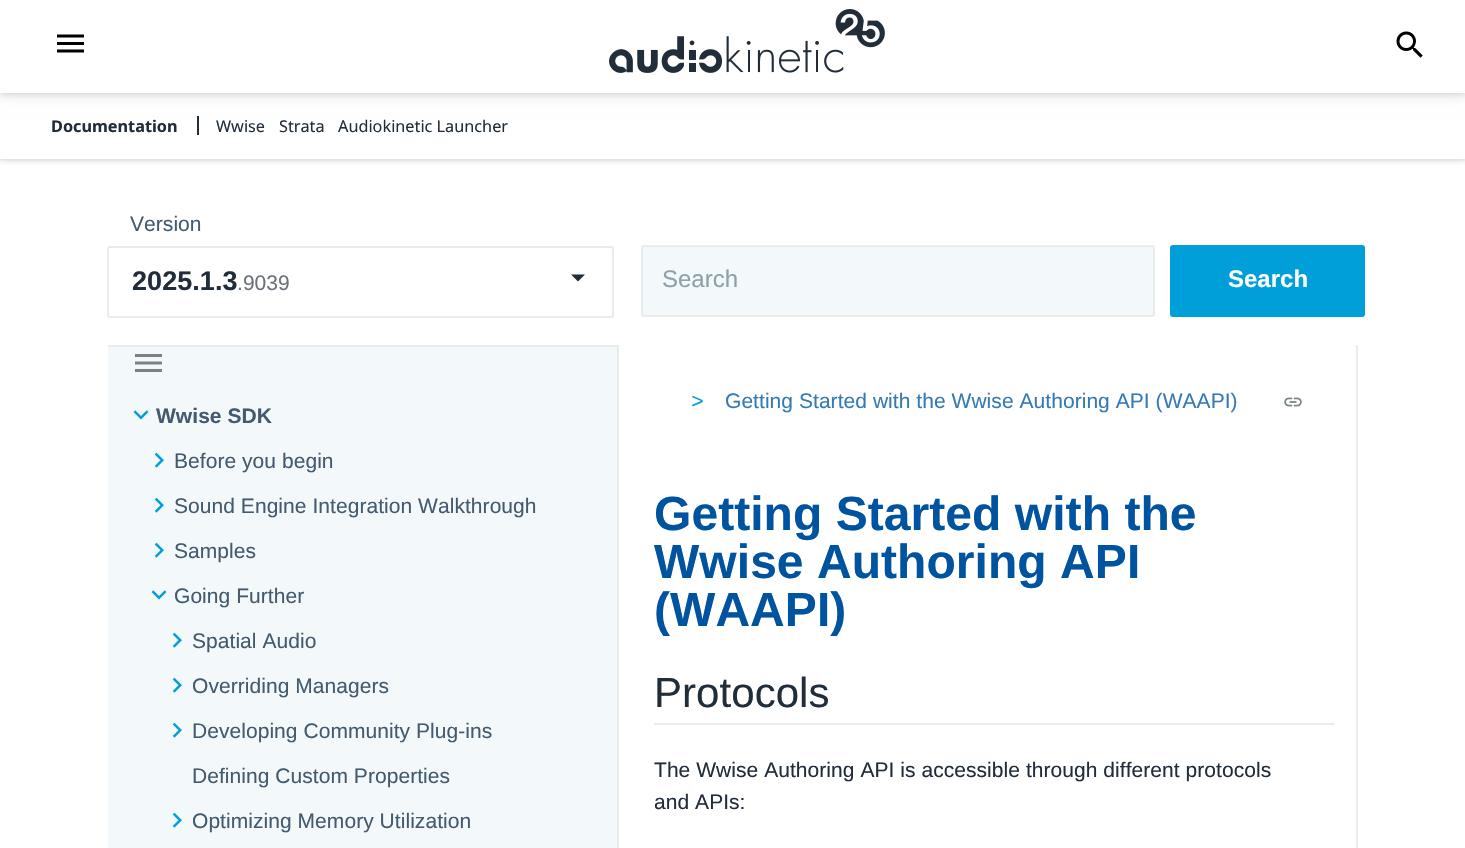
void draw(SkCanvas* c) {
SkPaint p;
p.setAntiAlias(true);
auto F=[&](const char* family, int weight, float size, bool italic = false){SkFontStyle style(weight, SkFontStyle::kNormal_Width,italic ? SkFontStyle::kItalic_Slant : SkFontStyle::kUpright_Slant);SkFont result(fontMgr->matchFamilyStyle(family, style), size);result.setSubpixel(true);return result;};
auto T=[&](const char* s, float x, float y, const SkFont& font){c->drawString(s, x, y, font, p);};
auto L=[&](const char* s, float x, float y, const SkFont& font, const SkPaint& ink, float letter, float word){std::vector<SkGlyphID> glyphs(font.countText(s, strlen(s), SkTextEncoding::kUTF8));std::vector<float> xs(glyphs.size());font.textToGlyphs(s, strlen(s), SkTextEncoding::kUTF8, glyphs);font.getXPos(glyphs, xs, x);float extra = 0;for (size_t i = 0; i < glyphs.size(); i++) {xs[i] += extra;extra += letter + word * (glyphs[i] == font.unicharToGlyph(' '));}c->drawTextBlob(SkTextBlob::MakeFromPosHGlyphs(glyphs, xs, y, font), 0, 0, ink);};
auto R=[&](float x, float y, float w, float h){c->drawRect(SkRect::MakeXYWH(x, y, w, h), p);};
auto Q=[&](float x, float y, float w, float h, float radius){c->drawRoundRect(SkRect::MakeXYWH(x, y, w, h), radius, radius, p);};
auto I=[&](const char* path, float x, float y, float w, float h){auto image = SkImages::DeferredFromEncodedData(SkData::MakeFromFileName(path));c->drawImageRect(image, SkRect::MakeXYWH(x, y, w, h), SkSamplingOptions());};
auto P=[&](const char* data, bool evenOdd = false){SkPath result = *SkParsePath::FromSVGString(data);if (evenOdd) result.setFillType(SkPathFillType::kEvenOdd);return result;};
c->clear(0xffffffff);
c->save();
c->clipRect(SkRect::MakeXYWH(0,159,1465,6));
p.setColor(0x14000000);
p.setMaskFilter(SkMaskFilter::MakeBlur(kNormal_SkBlurStyle, 6));
c->drawRect(SkRect::MakeXYWH(0,95,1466,66),p);
p.setMaskFilter(nullptr);
c->restore();
c->save();
c->clipRect(SkRect::MakeXYWH(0,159,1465,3));
p.setMaskFilter(SkMaskFilter::MakeBlur(kNormal_SkBlurStyle, 1.5));
c->drawRect(SkRect::MakeXYWH(0,95,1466,66),p);
p.setMaskFilter(nullptr);
c->restore();
p.setColor(0xff212d39);
R(197,116,2,19);
p.setColor(0x0f000000);
p.setMaskFilter(SkMaskFilter::MakeBlur(kNormal_SkBlurStyle, 7.5));
c->drawRect(SkRect::MakeXYWH(0,3,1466,93),p);
p.setMaskFilter(nullptr);
p.setColor(0x1f000000);
p.setMaskFilter(SkMaskFilter::MakeBlur(kNormal_SkBlurStyle, 3));
c->drawRect(SkRect::MakeXYWH(0,2,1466,93),p);
p.setMaskFilter(nullptr);
p.setColor(0xffffffff);
R(0,0,1465,93);
I("1.png",57,34,27,19);
I("2.png",609,9,276,64);
I("3.png",1396,31,27,27);
auto f1 = F("Noto Sans",700,16.25);
p.setColor(0xff212d39);
T("Documentation",51,132,f1);
auto f2 = F("Noto Sans",400,16.25);
T("Wwise",216,132,f2);
T("Strata",279,132,f2);
T("Audiokinetic Launcher",338,132,f2);
auto f3 = F("Liberation Sans",400,21);
p.setColor(0xff435a6f);
L("Version",130,231,f3,p,.05,0);
p.setStroke(true);
p.setStrokeWidth(2);
p.setColor(0xffe7ecec);
c->drawRoundRect(SkRect::MakeXYWH(108,247,505,70),2,2,p);
auto f4 = F("Liberation Sans",700,27);
p.setStroke(false);
p.setColor(0xff212d39);
L("2025.1.3",132,290,f4,p,.05,0);
p.setColor(0xff6c717d);
L(".9039",237,290,f3,p,.05,0);
p.setColor(0xff212d39);
c->drawPath(P("M571 274.5h14l-7 7z"),p);
p.setColor(0xfff3f9fa);
c->drawRoundRect(SkRect::MakeXYWH(642,246,512,70),2,2,p);
p.setStroke(true);
p.setColor(0xffe7ecec);
c->drawRoundRect(SkRect::MakeXYWH(642,246,512,70),2,2,p);
auto f5 = F("Liberation Sans",400,24);
p.setStroke(false);
p.setColor(0xff8ca1ab);
T("Search",662,287,f5);
p.setColor(0xff009fda);
Q(1170,245,195,72,3);
auto f6 = F("Liberation Sans",700,24);
p.setColor(0xffffffff);
T("Search",1228,287,f6);
p.setColor(0xfff3f9fa);
R(108,347,509,501);
I("4.png",135,354,27,18);
p.setColor(0xffe7ecec);
R(108,345,510,2);
R(617,345,2,503);
I("5.png",133,410,16,10);
auto f7 = F("Liberation Sans",700,21);
p.setColor(0xff435a6f);
L("Wwise SDK",156,423,f7,p,.05,0);
I("6.png",154,452,10,16);
L("Before you begin",174,468,f3,p,.05,0);
I("6.png",154,497,10,16);
L("Sound Engine Integration Walkthrough",174,513,f3,p,.05,0);
I("6.png",154,542,10,16);
L("Samples",174,558,f3,p,.05,0);
I("5.png",151,590,16,10);
L("Going Further",174,603,f3,p,.05,0);
I("6.png",172,632,10,16);
L("Spatial Audio",192,648,f3,p,.05,0);
I("6.png",172,677,10,16);
L("Overriding Managers",192,693,f3,p,.05,0);
I("6.png",172,722,10,16);
L("Developing Community Plug-ins",192,738,f3,p,.05,0);
L("Defining Custom Properties",192,783,f3,p,.05,0);
I("6.png",172,812,10,16);
L("Optimizing Memory Utilization",192,828,f3,p,.05,0);
p.setColor(0xffe7ecec);
R(1356,345,2,503);
auto f8 = F("Liberation Sans",400,21,true);
p.setColor(0xff009fda);
L(">",691,408,f8,p,.05,0);
p.setColor(0xff337ab7);
L("Getting Started with the Wwise Authoring API (WAAPI)",725,408,f3,p,.05,0);
I("7.png",1284,397,18,10);
auto f9 = F("Liberation Sans",700,48);
p.setColor(0xff00549f);
L("Getting Started with the",654,530,f9,p,.05,0);
L("Wwise Authoring API",654,578,f9,p,.05,0);
L("(WAAPI)",654,626,f9,p,.05,0);
p.setColor(0xffe7ecec);
R(654,723,680,2);
auto f10 = F("Liberation Sans",400,42);
p.setColor(0xff212d39);
L("Protocols",654,707,f10,p,.05,0);
L("The Wwise Authoring API is accessible through different protocols",654,777,f3,p,.05,0);
L("and APIs:",654,809,f3,p,.05,0);
}
